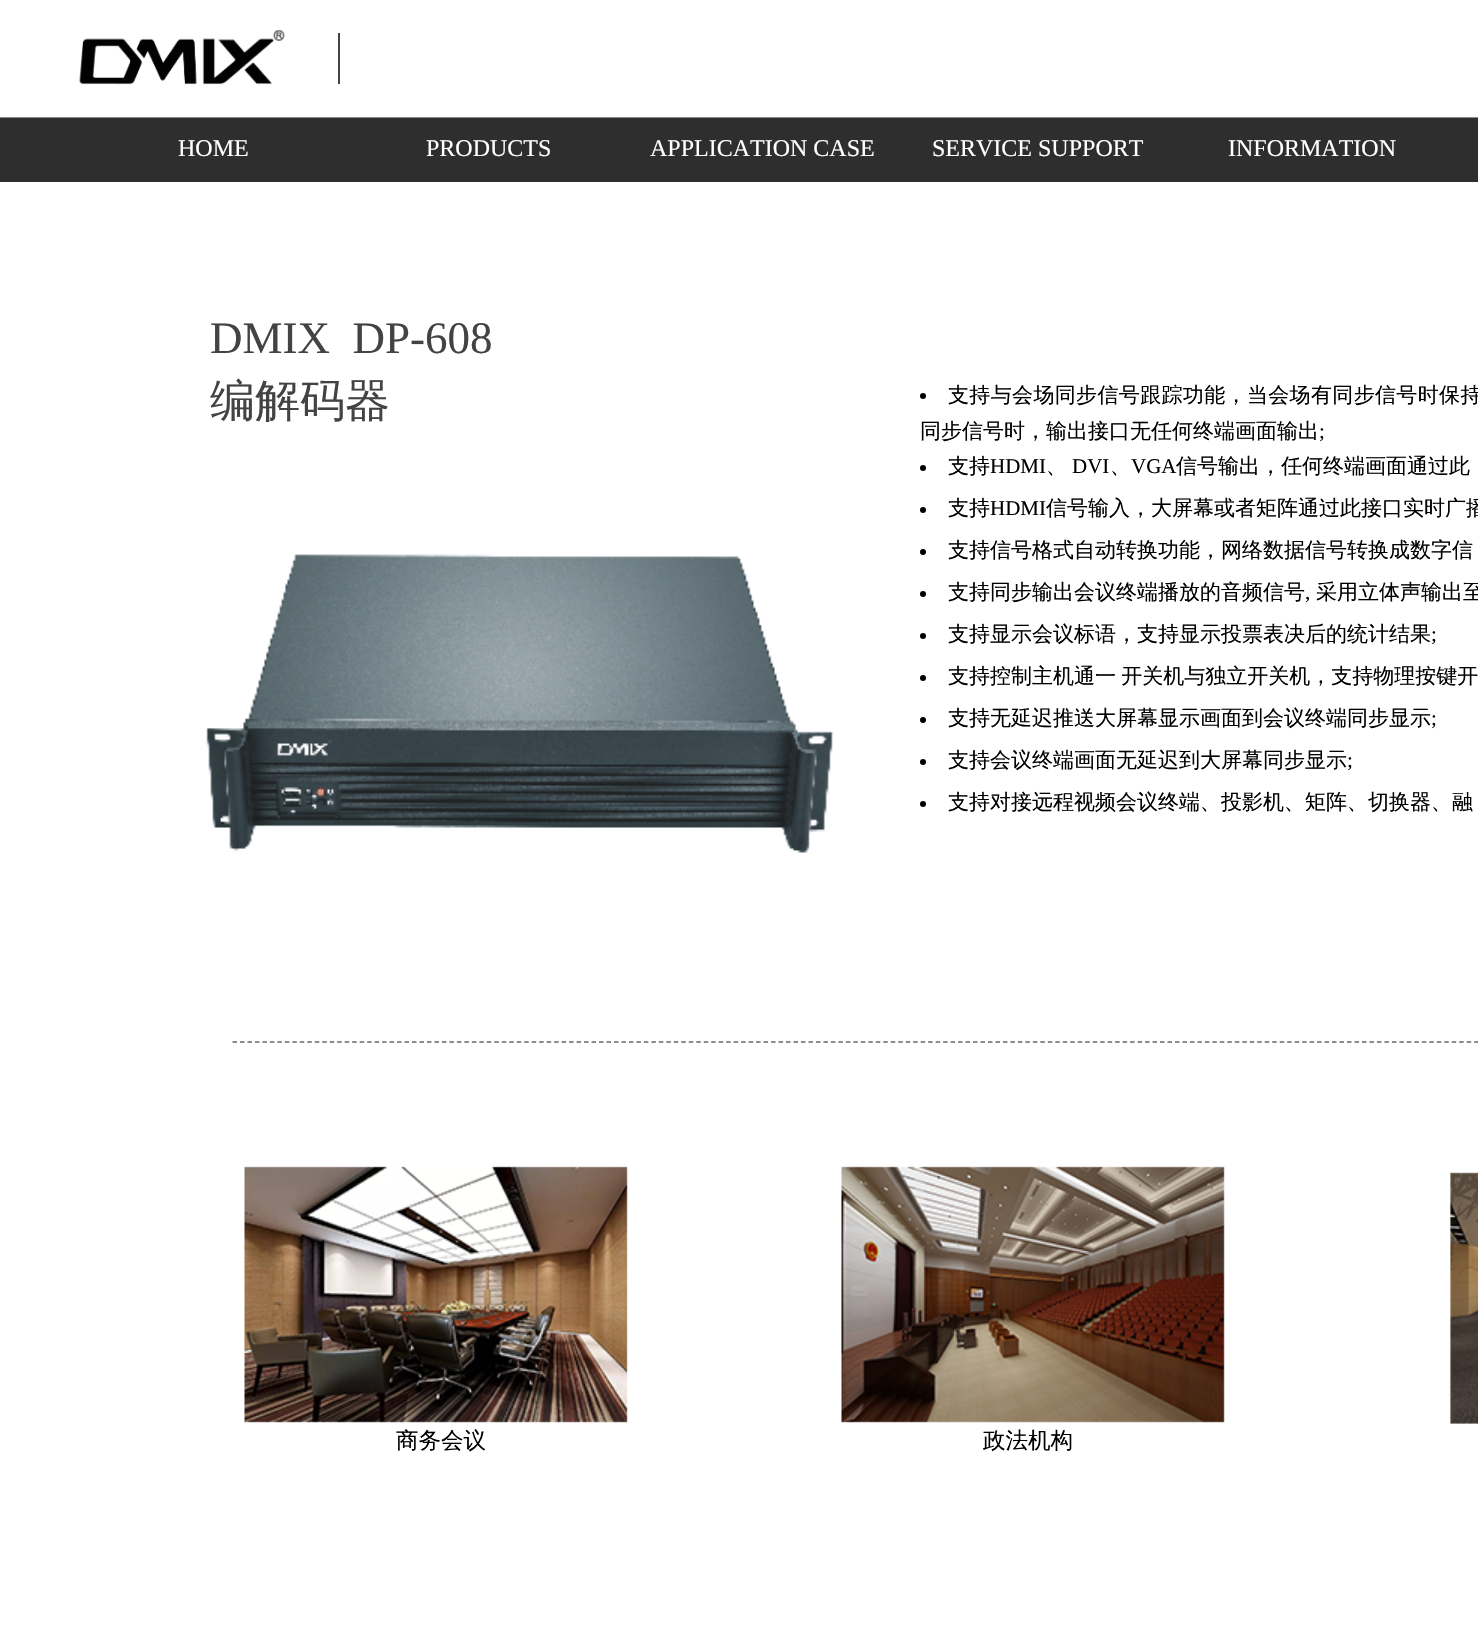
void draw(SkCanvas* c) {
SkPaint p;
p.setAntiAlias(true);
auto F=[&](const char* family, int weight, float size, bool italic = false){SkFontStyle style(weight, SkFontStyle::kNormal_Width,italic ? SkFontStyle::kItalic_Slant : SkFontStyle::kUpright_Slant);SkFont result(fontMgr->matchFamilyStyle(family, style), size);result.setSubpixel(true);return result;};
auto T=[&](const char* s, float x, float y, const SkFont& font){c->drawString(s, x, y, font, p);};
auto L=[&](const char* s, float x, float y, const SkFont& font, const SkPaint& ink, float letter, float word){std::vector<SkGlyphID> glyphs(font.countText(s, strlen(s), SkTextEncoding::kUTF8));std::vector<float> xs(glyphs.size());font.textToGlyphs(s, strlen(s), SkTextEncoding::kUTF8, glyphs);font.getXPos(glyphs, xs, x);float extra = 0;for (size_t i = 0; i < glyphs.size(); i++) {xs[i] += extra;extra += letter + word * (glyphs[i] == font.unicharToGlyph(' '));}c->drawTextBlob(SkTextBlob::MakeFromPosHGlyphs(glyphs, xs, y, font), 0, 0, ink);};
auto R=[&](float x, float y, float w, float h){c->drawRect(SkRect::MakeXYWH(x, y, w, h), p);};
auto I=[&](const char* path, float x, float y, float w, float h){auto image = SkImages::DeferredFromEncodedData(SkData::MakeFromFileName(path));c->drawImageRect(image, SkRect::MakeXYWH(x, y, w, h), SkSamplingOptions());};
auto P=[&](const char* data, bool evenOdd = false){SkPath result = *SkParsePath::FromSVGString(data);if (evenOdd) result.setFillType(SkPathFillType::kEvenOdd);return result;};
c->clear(0xffffffff);
{
const SkColor colors[] = {0xffffffff,0xff2e2e2e};
const float stops[] = {.64,.65};
const SkPoint ends[] = {{1050,0}, {1050,182}};
p.setShader(SkGradientShader::MakeLinear(ends, colors, stops, 2, SkTileMode::kClamp));
p.setAlpha(255);
}
R(0,117,1478,65);
I("1.png",79,30,206,55);
p.setShader(nullptr);
p.setColor(0xff434343);
R(338,33,2,51);
auto f1 = F("Liberation Serif",400,24);
p.setColor(0xffffffff);
T("HOME",178,156,f1);
T("PRODUCTS",426,156,f1);
T("APPLICATION CASE",650,156,f1);
T("SERVICE SUPPORT",932,156,f1);
T("INFORMATION",1228,156,f1);
auto f2 = F("Liberation Serif",400,45);
p.setColor(0xff434343);
T("DMIX  DP-608",210,353,f2);
auto f3 = F("WenQuanYi Zen Hei",500,45);
T("编解码器",210,416,f3);
I("2.png",206,554,628,299);
p.setColor(0xff000000);
c->drawCircle(923,396,3,p);
auto f4 = F("WenQuanYi Zen Hei",500,21);
L("支持与会场同步信号跟踪功能，当会场有同步信号时保持",948,402,f4,p,.35,0);
T("同步信号时，输出接口无任何终端画面输出",920,438,f4);
auto f5 = F("Liberation Serif",400,21);
T(";",1319,438,f5);
c->drawCircle(923,468,3,p);
T("支持",948,473,f4);
T("HDMI",990,473,f5);
T("DVI",1072,473,f5);
T("VGA",1131,473,f5);
T("信号输出，任何终端画面通过此",1176,473,f4);
T("、",1046,473,f4);
T("、",1110,473,f4);
c->drawCircle(923,510,3,p);
T("支持",948,515,f4);
T("HDMI",990,515,f5);
T("信号输入，大屏幕或者矩阵通过此接口实时广播",1046,515,f4);
c->drawCircle(923,552,3,p);
T("支持信号格式自动转换功能，网络数据信号转换成数字信",948,557,f4);
c->drawCircle(923,594,3,p);
T("支持同步输出会议终端播放的音频信号",948,599,f4);
T("采用立体声输出至",1316,599,f4);
T(",",1305,599,f5);
c->drawCircle(923,636,3,p);
T("支持显示会议标语，支持显示投票表决后的统计结果",948,641,f4);
T(";",1431,641,f5);
c->drawCircle(923,678,3,p);
L("支持控制主机通一 开关机与独立开关机，支持物理按键开",948,683,f4,p,0,-1);
c->drawCircle(923,720,3,p);
T("支持无延迟推送大屏幕显示画面到会议终端同步显示",948,725,f4);
T(";",1431,725,f5);
c->drawCircle(923,762,3,p);
T("支持会议终端画面无延迟到大屏幕同步显示",948,767,f4);
T(";",1347,767,f5);
c->drawCircle(923,804,3,p);
T("支持对接远程视频会议终端、投影机、矩阵、切换器、融",948,809,f4);
p.setStroke(true);
p.setStrokeWidth(1.5);
p.setColor(0xff666666);
p.setPathEffect(SkDashPathEffect::Make({{4.5f,2.98f}}, 0));
c->drawPath(P("M232.5 1042h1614"),p);
p.setPathEffect(nullptr);
I("3.png",244,1166,384,257);
I("4.png",841,1166,384,257);
I("5.png",1450,1172,28,252);
auto f6 = F("WenQuanYi Zen Hei",500,22.5);
p.setStroke(false);
p.setColor(0xff000000);
T("商务会议",396,1448,f6);
T("政法机构",983,1448,f6);
}
